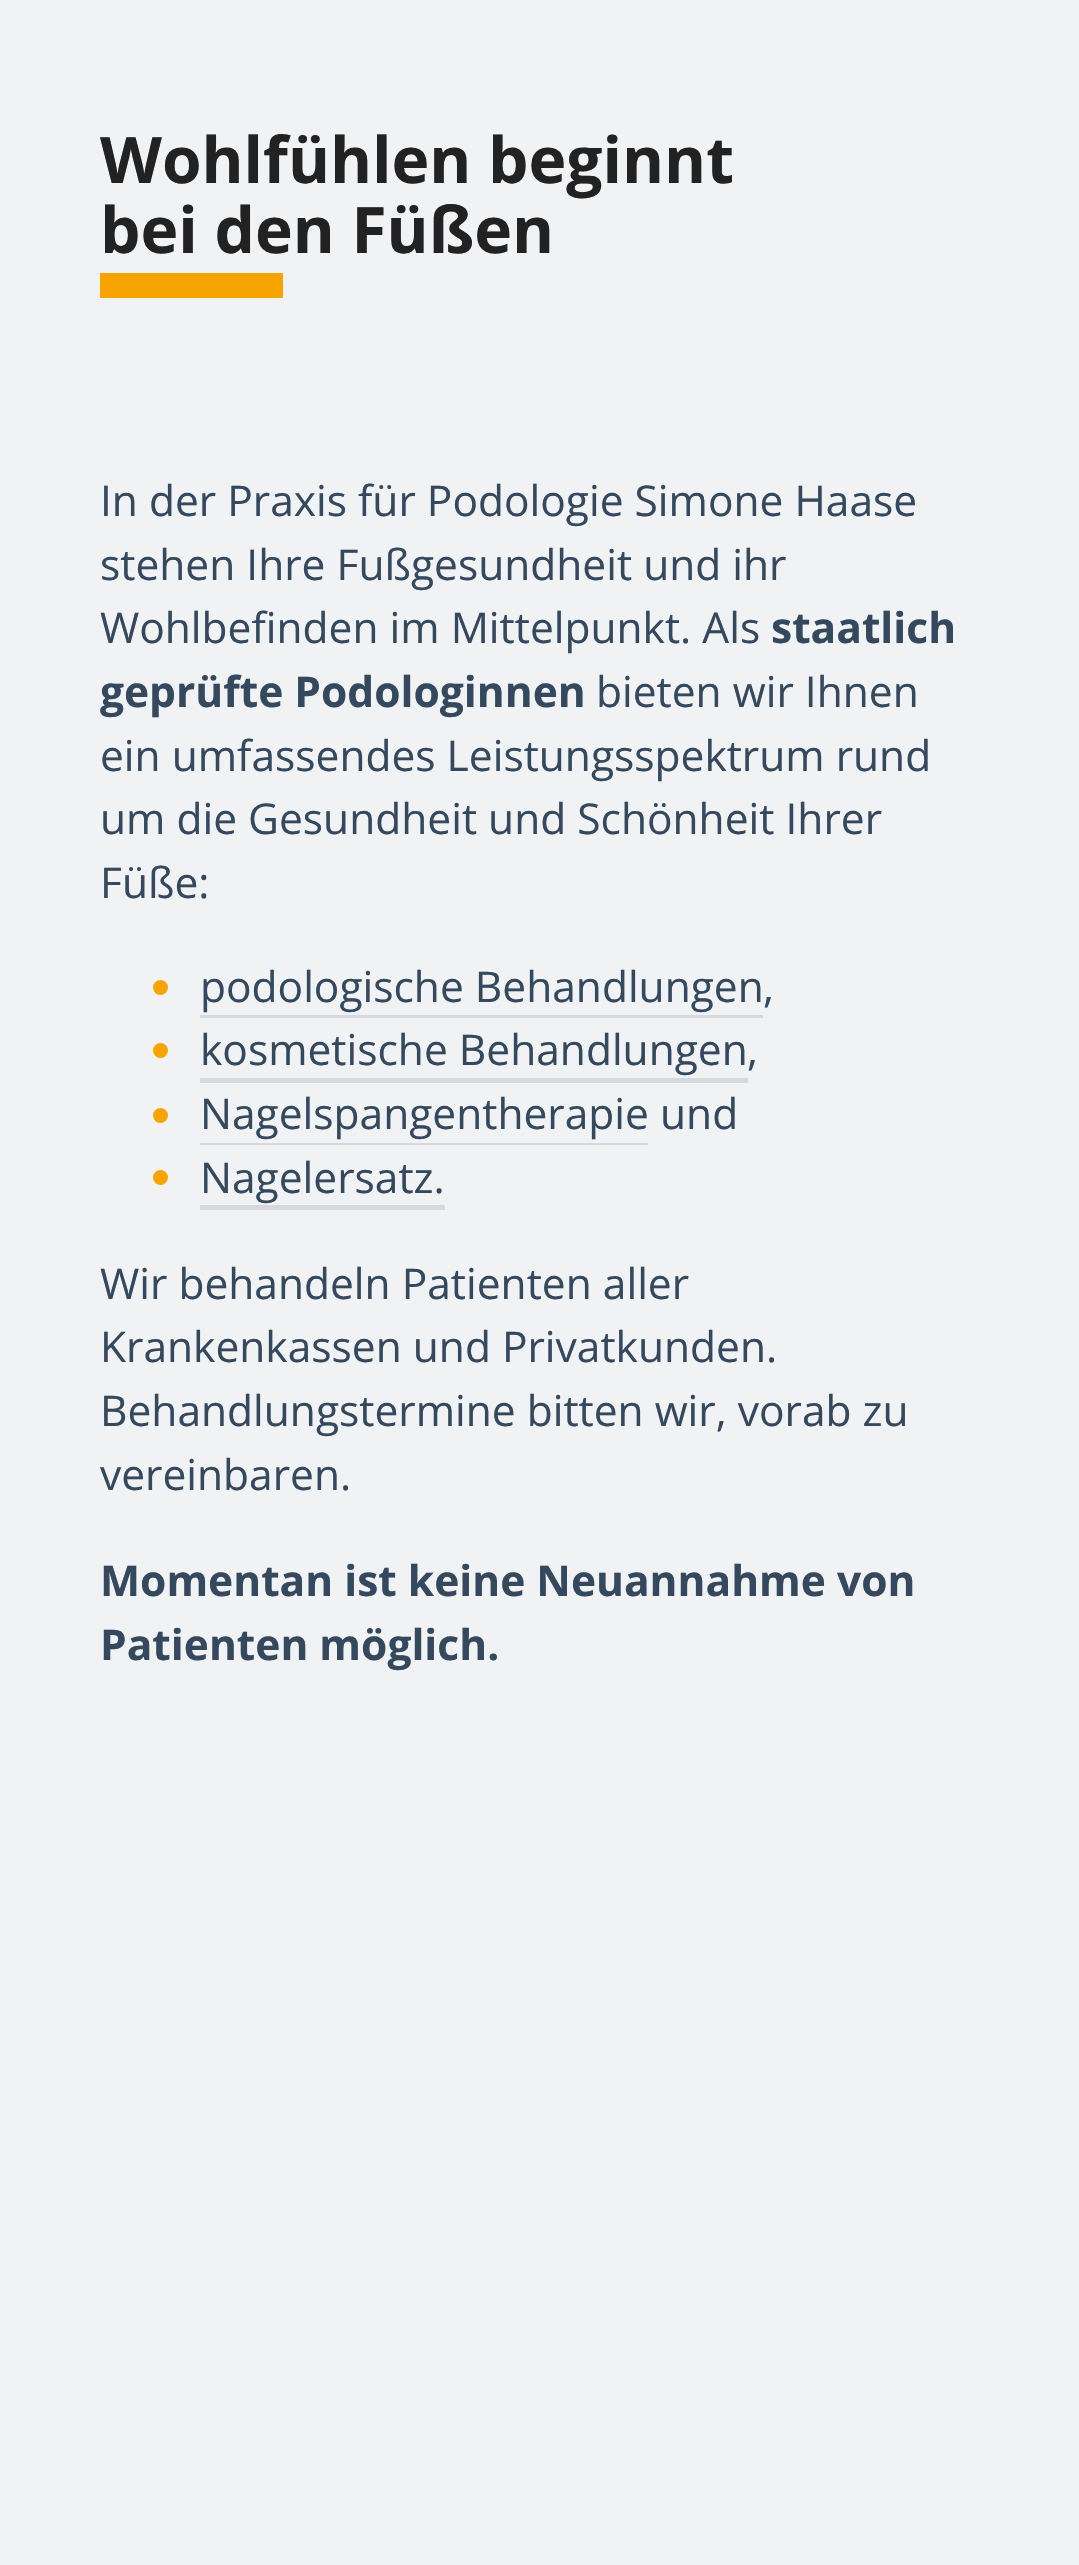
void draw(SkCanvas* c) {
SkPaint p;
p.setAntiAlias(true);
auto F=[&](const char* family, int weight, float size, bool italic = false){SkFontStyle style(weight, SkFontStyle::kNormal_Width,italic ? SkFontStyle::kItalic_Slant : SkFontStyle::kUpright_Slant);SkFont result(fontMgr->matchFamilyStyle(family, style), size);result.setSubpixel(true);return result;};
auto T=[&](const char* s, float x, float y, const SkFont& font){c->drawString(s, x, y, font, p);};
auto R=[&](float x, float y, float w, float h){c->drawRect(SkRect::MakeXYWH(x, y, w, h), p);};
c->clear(0xfff1f2f4);
auto f1 = F("Open Sans",700,64);
p.setColor(0xff222222);
T("Wohlfühlen beginnt",100,183,f1);
T("bei den Füßen",100,253,f1);
p.setColor(0xfff8a400);
R(100,273,183,25);
auto f2 = F("Open Sans",400,42.5);
p.setColor(0xff34495e);
T("In der Praxis für Podologie Simone Haase",100,516,f2);
T("stehen Ihre Fußgesundheit und ihr",100,580,f2);
T("Wohlbefinden im Mittelpunkt. Als",100,643,f2);
auto f3 = F("Open Sans",700,42.5);
T("staatlich",771,643,f3);
T("geprüfte Podologinnen",100,707,f3);
T("bieten wir Ihnen",596,707,f2);
T("ein umfassendes Leistungsspektrum rund",100,771,f2);
T("um die Gesundheit und Schönheit Ihrer",100,834,f2);
T("Füße:",100,898,f2);
p.setColor(0xfff8a400);
c->drawCircle(160.5,987.5,7.5,p);
p.setColor(0xff34495e);
T("podologische Behandlungen",200,1002,f2);
p.setColor(0xffd5d9de);
R(200,1015,563,3);
p.setColor(0xff34495e);
T(",",763,1002,f2);
p.setColor(0xfff8a400);
c->drawCircle(160.5,1050.5,7.5,p);
p.setColor(0xff34495e);
T("kosmetische Behandlungen",200,1065,f2);
p.setColor(0xffd5d9de);
R(200,1078,548,5);
p.setColor(0xff34495e);
T(",",747,1065,f2);
p.setColor(0xfff8a400);
c->drawCircle(160.5,1115.5,7.5,p);
p.setColor(0xff34495e);
T("Nagelspangentherapie",200,1129,f2);
p.setColor(0xffd5d9de);
R(200,1143,448,2);
p.setColor(0xff34495e);
T("und",660,1129,f2);
p.setColor(0xfff8a400);
c->drawCircle(160.5,1177.5,7.5,p);
p.setColor(0xff34495e);
T("Nagelersatz.",200,1193,f2);
p.setColor(0xffd5d9de);
R(200,1205,245,5);
p.setColor(0xff34495e);
T("Wir behandeln Patienten aller",100,1299,f2);
T("Krankenkassen und Privatkunden.",100,1362,f2);
T("Behandlungstermine bitten wir, vorab zu",100,1426,f2);
T("vereinbaren.",100,1490,f2);
T("Momentan ist keine Neuannahme von",100,1596,f3);
T("Patienten möglich.",100,1660,f3);
}
